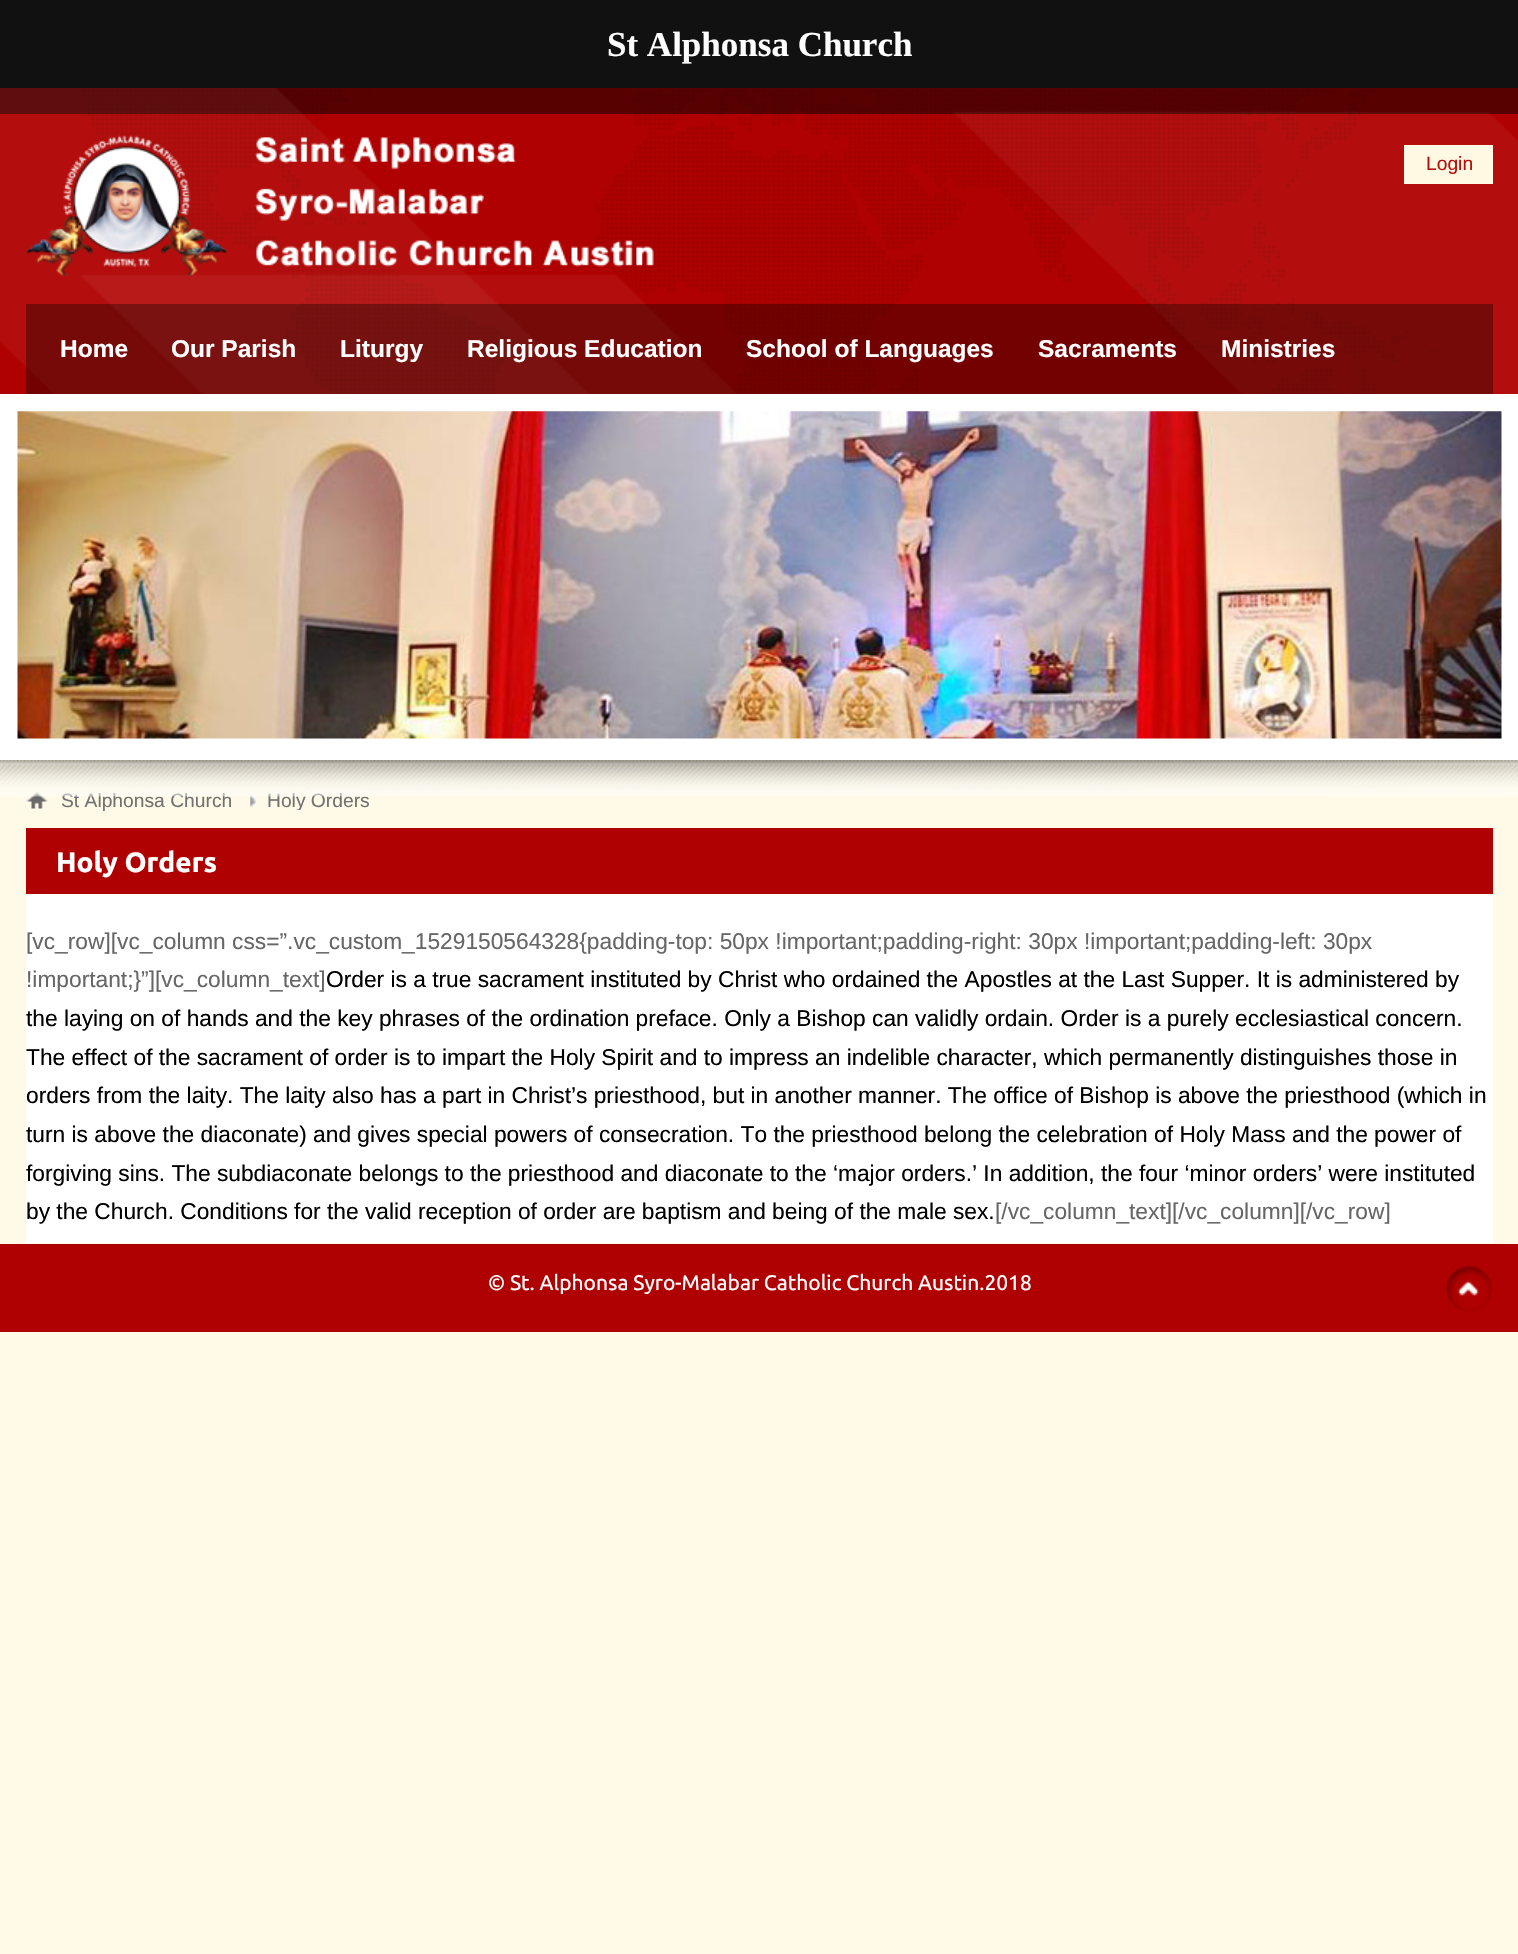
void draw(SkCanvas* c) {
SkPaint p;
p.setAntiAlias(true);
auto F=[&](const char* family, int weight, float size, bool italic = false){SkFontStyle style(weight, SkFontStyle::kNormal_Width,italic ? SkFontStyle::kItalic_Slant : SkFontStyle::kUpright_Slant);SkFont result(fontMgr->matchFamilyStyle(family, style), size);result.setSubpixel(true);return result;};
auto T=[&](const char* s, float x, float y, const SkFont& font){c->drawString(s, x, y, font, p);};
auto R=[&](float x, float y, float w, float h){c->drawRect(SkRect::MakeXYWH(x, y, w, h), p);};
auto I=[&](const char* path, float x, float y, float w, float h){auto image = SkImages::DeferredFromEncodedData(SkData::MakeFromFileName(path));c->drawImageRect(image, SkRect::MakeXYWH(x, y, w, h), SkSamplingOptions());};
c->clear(0xfffffae7);
p.setColor(0xffaf0101);
R(0,88,1518,306);
I("8.png",82,89,1355,305);
p.setColor(0x80000000);
R(0,88,1518,26);
I("1.png",0,88,1518,306);
p.setColor(0xff111111);
R(0,0,1518,88);
auto f1 = F("Liberation Serif",700,35);
p.setColor(0xffffffff);
T("St Alphonsa Church",607,56,f1);
I("2.png",26,135,628,142);
p.setColor(0xfffff9e3);
R(1404,145,89,39);
auto f2 = F("Liberation Sans",400,19.25);
p.setColor(0xffb30d0c);
T("Login",1426,170,f2);
p.setColor(0x57000000);
R(26,304,1467,90);
auto f3 = F("Liberation Sans",700,24.5);
p.setColor(0xffffffff);
T("Home",60,357,f3);
T("Our Parish",171,357,f3);
T("Liturgy",340,357,f3);
T("Religious Education",467,357,f3);
T("School of Languages",746,357,f3);
T("Sacraments",1038,357,f3);
T("Ministries",1221,357,f3);
I("5.png",26,792,22,17);
p.setColor(0xff717171);
T("St Alphonsa Church",61,807,f2);
I("6.png",250,794,6,13);
c->save();
c->clipRect(SkRect::MakeXYWH(61,789,1432,21));
T("Holy Orders",267,807,f2);
c->restore();
I("3.png",0,760,1518,37);
p.setColor(0xffffffff);
R(0,394,1518,366);
I("4.png",17,411,1485,328);
R(26,894,1467,349);
p.setColor(0xffaf0101);
R(26,828,1467,66);
auto f4 = F("Ubuntu",700,28);
p.setColor(0xffffffff);
T("Holy Orders",56,872,f4);
auto f5 = F("Liberation Sans",400,22.75);
p.setColor(0xff666666);
T("[vc_row][vc_column css=”.vc_custom_1529150564328{padding-top: 50px !important;padding-right: 30px !important;padding-left: 30px",26,949,f5);
T("!important;}”][vc_column_text]",26,987,f5);
p.setColor(0xff000000);
T("Order is a true sacrament instituted by Christ who ordained the Apostles at the Last Supper. It is administered by",326,987,f5);
T("the laying on of hands and the key phrases of the ordination preface. Only a Bishop can validly ordain. Order is a purely ecclesiastical concern.",26,1026,f5);
T("The effect of the sacrament of order is to impart the Holy Spirit and to impress an indelible character, which permanently distinguishes those in",26,1065,f5);
T("orders from the laity. The laity also has a part in Christ’s priesthood, but in another manner. The office of Bishop is above the priesthood (which in",26,1103,f5);
T("turn is above the diaconate) and gives special powers of consecration. To the priesthood belong the celebration of Holy Mass and the power of",26,1142,f5);
T("forgiving sins. The subdiaconate belongs to the priesthood and diaconate to the ‘major orders.’ In addition, the four ‘minor orders’ were instituted",26,1181,f5);
T("by the Church. Conditions for the valid reception of order are baptism and being of the male sex.",26,1219,f5);
p.setColor(0xff666666);
T("[/vc_column_text][/vc_column][/vc_row]",995,1219,f5);
p.setColor(0xffaf0101);
R(0,1244,1518,88);
auto f6 = F("Ubuntu",400,21);
p.setColor(0xffffffff);
T("© St. Alphonsa Syro-Malabar Catholic Church Austin.2018",488,1290,f6);
I("7.png",1445,1265,48,47);
}
